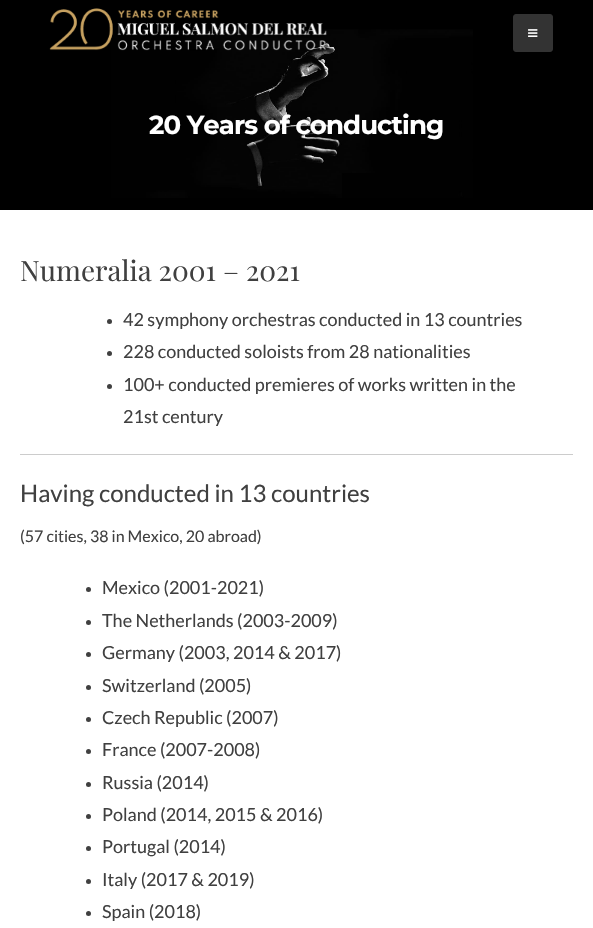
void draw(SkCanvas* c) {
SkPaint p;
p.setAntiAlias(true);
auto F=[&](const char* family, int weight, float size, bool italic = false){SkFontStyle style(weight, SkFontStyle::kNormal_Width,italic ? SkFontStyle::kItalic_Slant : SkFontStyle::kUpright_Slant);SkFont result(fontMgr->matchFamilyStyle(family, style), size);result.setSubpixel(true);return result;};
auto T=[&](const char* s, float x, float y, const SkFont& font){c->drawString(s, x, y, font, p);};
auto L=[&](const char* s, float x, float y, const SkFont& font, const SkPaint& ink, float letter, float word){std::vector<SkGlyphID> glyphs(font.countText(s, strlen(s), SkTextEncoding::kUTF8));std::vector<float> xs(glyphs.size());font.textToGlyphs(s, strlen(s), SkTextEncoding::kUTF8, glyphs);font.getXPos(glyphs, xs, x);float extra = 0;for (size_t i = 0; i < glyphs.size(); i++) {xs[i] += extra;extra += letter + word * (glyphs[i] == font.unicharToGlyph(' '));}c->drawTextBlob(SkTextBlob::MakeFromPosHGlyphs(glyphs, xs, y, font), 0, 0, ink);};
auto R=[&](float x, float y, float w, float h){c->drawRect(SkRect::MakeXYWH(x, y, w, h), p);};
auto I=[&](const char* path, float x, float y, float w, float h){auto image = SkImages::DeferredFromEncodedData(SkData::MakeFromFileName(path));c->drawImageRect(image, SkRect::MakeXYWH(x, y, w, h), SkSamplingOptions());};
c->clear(0xffffffff);
I("1.png",0,0,593,210);
I("2.png",49,8,278,43);
p.setColor(0xff333333);
c->drawRoundRect(SkRect::MakeXYWH(513.5,14.5,39,37),2.5,2.5,p);
p.setStroke(true);
p.setStrokeWidth(1);
c->drawRoundRect(SkRect::MakeXYWH(513.5,14.5,39,37),2.5,2.5,p);
I("3.png",528,29,10,8);
auto f1 = F("Montserrat",100,26);
p.setStroke(false);
p.setColor(0xffffffff);
L("20 Years of conducting",149,134,f1,p,-.9,0);
auto f2 = F("Playfair Display",400,28);
p.setColor(0xff404040);
T("Numeralia 2001 – 2021",20,281,f2);
c->drawCircle(109.5,321.5,2.5,p);
auto f3 = F("Lato",400,18);
T("42 symphony orchestras conducted in 13 countries",123,326,f3);
c->drawCircle(109.5,353.5,2.5,p);
T("228 conducted soloists from 28 nationalities",123,358,f3);
c->drawCircle(109.5,386.5,2.5,p);
T("100+ conducted premieres of works written in the",123,391,f3);
T("21st century",123,423,f3);
p.setColor(0xffcccccc);
R(20,454,553,1);
auto f4 = F("Lato",400,24);
p.setColor(0xff404040);
T("Having conducted in 13 countries",20,502,f4);
auto f5 = F("Lato",400,16);
T("(57 cities, 38 in Mexico, 20 abroad)",20,542,f5);
c->drawCircle(88.5,589.5,2.5,p);
T("Mexico (2001-2021)",102,594,f3);
c->drawCircle(88.5,622.5,2.5,p);
T("The Netherlands (2003-2009)",102,627,f3);
c->drawCircle(88.5,654.5,2.5,p);
T("Germany (2003, 2014 & 2017)",102,659,f3);
c->drawCircle(88.5,687.5,2.5,p);
T("Switzerland (2005)",102,692,f3);
c->drawCircle(88.5,719.5,2.5,p);
T("Czech Republic (2007)",102,724,f3);
c->drawCircle(88.5,751.5,2.5,p);
T("France (2007-2008)",102,756,f3);
c->drawCircle(88.5,784.5,2.5,p);
T("Russia (2014)",102,789,f3);
c->drawCircle(88.5,816.5,2.5,p);
T("Poland (2014, 2015 & 2016)",102,821,f3);
c->drawCircle(88.5,848.5,2.5,p);
T("Portugal (2014)",102,853,f3);
c->drawCircle(88.5,881.5,2.5,p);
T("Italy (2017 & 2019)",102,886,f3);
c->drawCircle(88.5,913.5,2.5,p);
T("Spain (2018)",102,918,f3);
}
